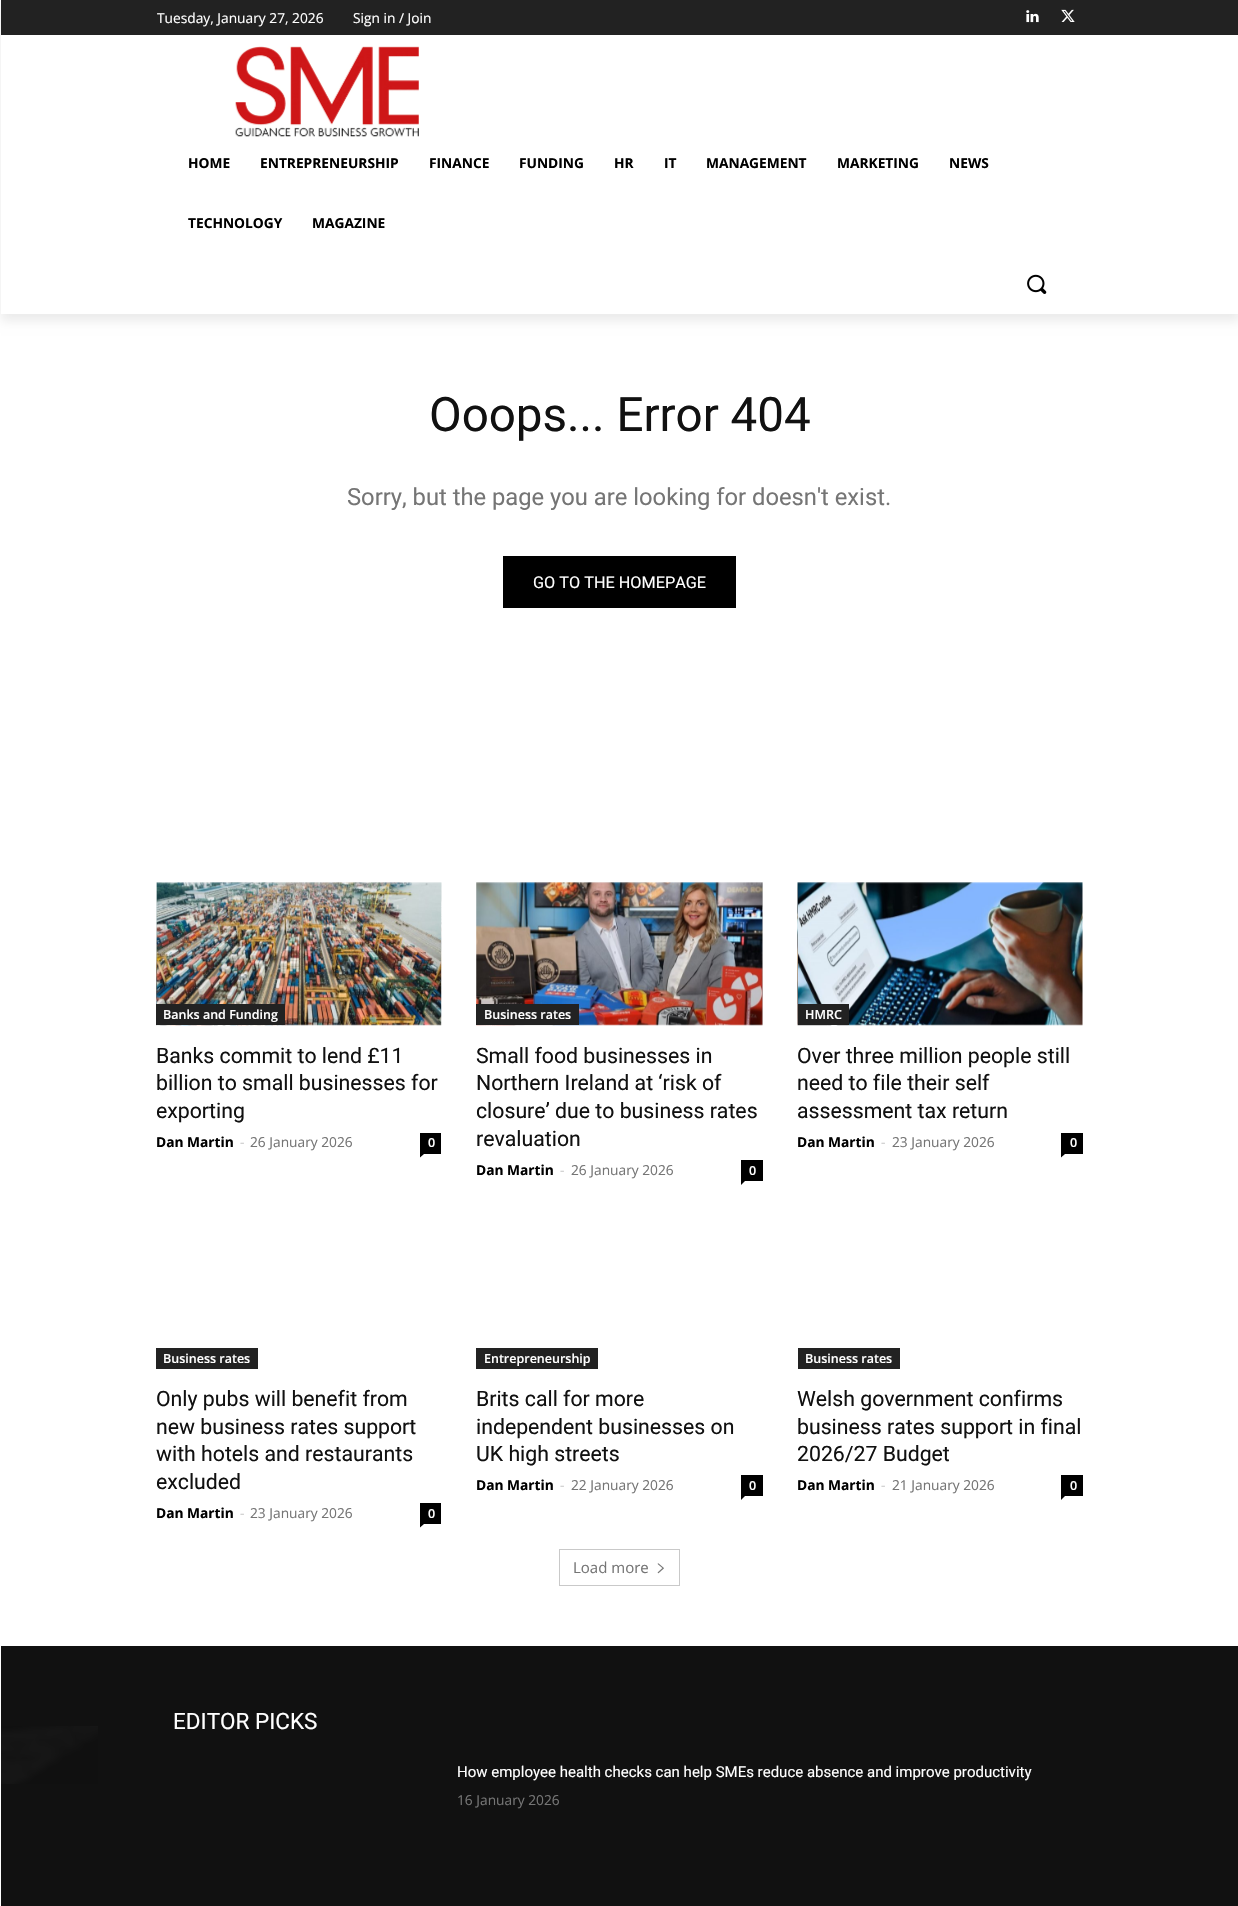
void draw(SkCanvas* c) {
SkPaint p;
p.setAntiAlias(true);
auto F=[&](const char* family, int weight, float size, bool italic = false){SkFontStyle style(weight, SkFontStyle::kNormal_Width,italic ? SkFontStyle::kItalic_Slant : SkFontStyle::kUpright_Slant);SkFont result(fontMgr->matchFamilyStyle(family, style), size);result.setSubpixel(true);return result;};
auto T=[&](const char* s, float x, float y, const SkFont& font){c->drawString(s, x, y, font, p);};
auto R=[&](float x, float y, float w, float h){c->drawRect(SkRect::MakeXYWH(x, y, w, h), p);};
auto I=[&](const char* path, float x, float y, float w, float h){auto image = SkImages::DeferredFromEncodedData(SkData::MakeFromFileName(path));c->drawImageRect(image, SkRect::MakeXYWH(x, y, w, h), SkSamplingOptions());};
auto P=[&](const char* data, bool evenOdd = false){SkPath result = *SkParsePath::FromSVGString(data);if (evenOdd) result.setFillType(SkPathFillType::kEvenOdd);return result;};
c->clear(0xffffffff);
p.setColor(0xff222222);
R(1,0,1237,35);
I("1.png",1026,10,13,13);
I("2.png",1061,9,14,13);
I("3.png",235,46,184,91);
c->save();
c->clipPath(P("M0 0h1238v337h-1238zm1 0h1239v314h-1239z",true),true);
p.setColor(0x14000000);
p.setMaskFilter(SkMaskFilter::MakeBlur(kNormal_SkBlurStyle, 5));
c->drawRect(SkRect::MakeXYWH(1,8,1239,313),p);
p.setMaskFilter(nullptr);
c->restore();
auto f1 = F("Open Sans",400,13.75);
p.setColor(0xffffffff);
T("Tuesday, January 27, 2026",157,23,f1);
T("Sign in / Join",353,23,f1);
auto f2 = F("Open Sans",700,13.75);
p.setColor(0xff000000);
T("HOME",188,168,f2);
T("ENTREPRENEURSHIP",260,168,f2);
T("FINANCE",429,168,f2);
T("FUNDING",519,168,f2);
T("HR",614,168,f2);
T("IT",664,168,f2);
T("MANAGEMENT",706,168,f2);
T("MARKETING",837,168,f2);
T("NEWS",949,168,f2);
T("TECHNOLOGY",188,228,f2);
T("MAGAZINE",312,228,f2);
I("4.png",1027,274,20,20);
auto f3 = F("Roboto",400,47.5);
p.setColor(0xff111111);
T("Ooops... Error 404",429,431,f3);
auto f4 = F("Roboto",400,23.75);
p.setColor(0xff757575);
T("Sorry, but the page you are looking for doesn't exist.",347,505,f4);
p.setColor(0xff000000);
R(503,556,233,52);
auto f5 = F("Roboto",400,16.25);
p.setColor(0xffffffff);
T("GO TO THE HOMEPAGE",533,588,f5);
I("5.png",156,882,286,144);
p.setColor(0xff222222);
R(156,1004,129,21);
auto f6 = F("Open Sans",600,12.5);
p.setColor(0xffffffff);
T("Banks and Funding",163,1019,f6);
auto f7 = F("Roboto",400,21.25);
p.setColor(0xff111111);
T("Banks commit to lend £11",156,1063,f7);
T("billion to small businesses for",156,1090,f7);
T("exporting",156,1118,f7);
p.setColor(0xff000000);
T("Dan Martin",156,1147,f2);
p.setColor(0xffcccccc);
T("-",240,1147,f1);
p.setColor(0xff757575);
T("26 January 2026",250,1147,f1);
p.setColor(0xff000000);
R(420,1133,21,21);
p.setColor(0xffffffff);
T("0",428,1147,f6);
p.setColor(0xff000000);
c->drawPath(P("M420 1154h4l-4 3.5z"),p);
I("6.png",476,882,287,144);
p.setColor(0xff222222);
R(476,1004,103,21);
p.setColor(0xffffffff);
T("Business rates",484,1019,f6);
p.setColor(0xff111111);
T("Small food businesses in",476,1063,f7);
T("Northern Ireland at ‘risk of",476,1090,f7);
T("closure’ due to business rates",476,1118,f7);
T("revaluation",476,1146,f7);
p.setColor(0xff000000);
T("Dan Martin",476,1175,f2);
p.setColor(0xffcccccc);
T("-",560,1175,f1);
p.setColor(0xff757575);
T("26 January 2026",571,1175,f1);
p.setColor(0xff000000);
R(741,1160,22,21);
p.setColor(0xffffffff);
T("0",749,1175,f6);
p.setColor(0xff000000);
c->drawPath(P("M741 1181h4l-4 4z"),p);
I("7.png",797,882,286,144);
p.setColor(0xff222222);
R(798,1004,51,21);
p.setColor(0xffffffff);
T("HMRC",805,1019,f6);
p.setColor(0xff111111);
T("Over three million people still",797,1063,f7);
T("need to file their self",797,1090,f7);
T("assessment tax return",797,1118,f7);
p.setColor(0xff000000);
T("Dan Martin",797,1147,f2);
p.setColor(0xffcccccc);
T("-",881,1147,f1);
p.setColor(0xff757575);
T("23 January 2026",892,1147,f1);
p.setColor(0xff000000);
R(1061,1133,22,21);
p.setColor(0xffffffff);
T("0",1070,1147,f6);
p.setColor(0xff000000);
c->drawPath(P("M1061 1154h4l-4 3.5z"),p);
p.setColor(0xff222222);
R(156,1348,102,21);
p.setColor(0xffffffff);
T("Business rates",163,1363,f6);
p.setColor(0xff111111);
T("Only pubs will benefit from",156,1406,f7);
T("new business rates support",156,1434,f7);
T("with hotels and restaurants",156,1461,f7);
T("excluded",156,1489,f7);
p.setColor(0xff000000);
T("Dan Martin",156,1518,f2);
p.setColor(0xffcccccc);
T("-",240,1518,f1);
p.setColor(0xff757575);
T("23 January 2026",250,1518,f1);
p.setColor(0xff000000);
R(420,1503,21,21);
p.setColor(0xffffffff);
T("0",428,1518,f6);
p.setColor(0xff000000);
c->drawPath(P("M420 1524h4l-4 3.5z"),p);
p.setColor(0xff222222);
R(476,1348,122,21);
p.setColor(0xffffffff);
T("Entrepreneurship",484,1363,f6);
p.setColor(0xff111111);
T("Brits call for more",476,1406,f7);
T("independent businesses on",476,1434,f7);
T("UK high streets",476,1461,f7);
p.setColor(0xff000000);
T("Dan Martin",476,1490,f2);
p.setColor(0xffcccccc);
T("-",560,1490,f1);
p.setColor(0xff757575);
T("22 January 2026",571,1490,f1);
p.setColor(0xff000000);
R(741,1475,22,21);
p.setColor(0xffffffff);
T("0",749,1490,f6);
p.setColor(0xff000000);
c->drawPath(P("M741 1496h4l-4 4z"),p);
p.setColor(0xff222222);
R(798,1348,102,21);
p.setColor(0xffffffff);
T("Business rates",805,1363,f6);
p.setColor(0xff111111);
T("Welsh government confirms",797,1406,f7);
T("business rates support in final",797,1434,f7);
T("2026/27 Budget",797,1461,f7);
p.setColor(0xff000000);
T("Dan Martin",797,1490,f2);
p.setColor(0xffcccccc);
T("-",881,1490,f1);
p.setColor(0xff757575);
T("21 January 2026",892,1490,f1);
p.setColor(0xff000000);
R(1061,1475,22,21);
p.setColor(0xffffffff);
T("0",1070,1490,f6);
p.setColor(0xff000000);
c->drawPath(P("M1061 1496h4l-4 4z"),p);
p.setStroke(true);
p.setStrokeWidth(1);
p.setColor(0xffc9c9c9);
c->drawRect(SkRect::MakeXYWH(559.5,1549.5,120,36),p);
auto f8 = F("Open Sans",400,15);
p.setStroke(false);
p.setColor(0xff757575);
T("Load more",573,1573,f8);
I("8.png",657,1563,7,11);
p.setColor(0xff111111);
R(1,1646,1237,260);
I("9.png",1,1726,97,58);
auto f9 = F("Roboto",400,22.5);
p.setColor(0xffffffff);
T("EDITOR PICKS",173,1729,f9);
auto f10 = F("Roboto",400,15);
T("How employee health checks can help SMEs reduce absence and improve productivity",457,1777,f10);
p.setColor(0xff757575);
T("16 January 2026",457,1805,f1);
}
